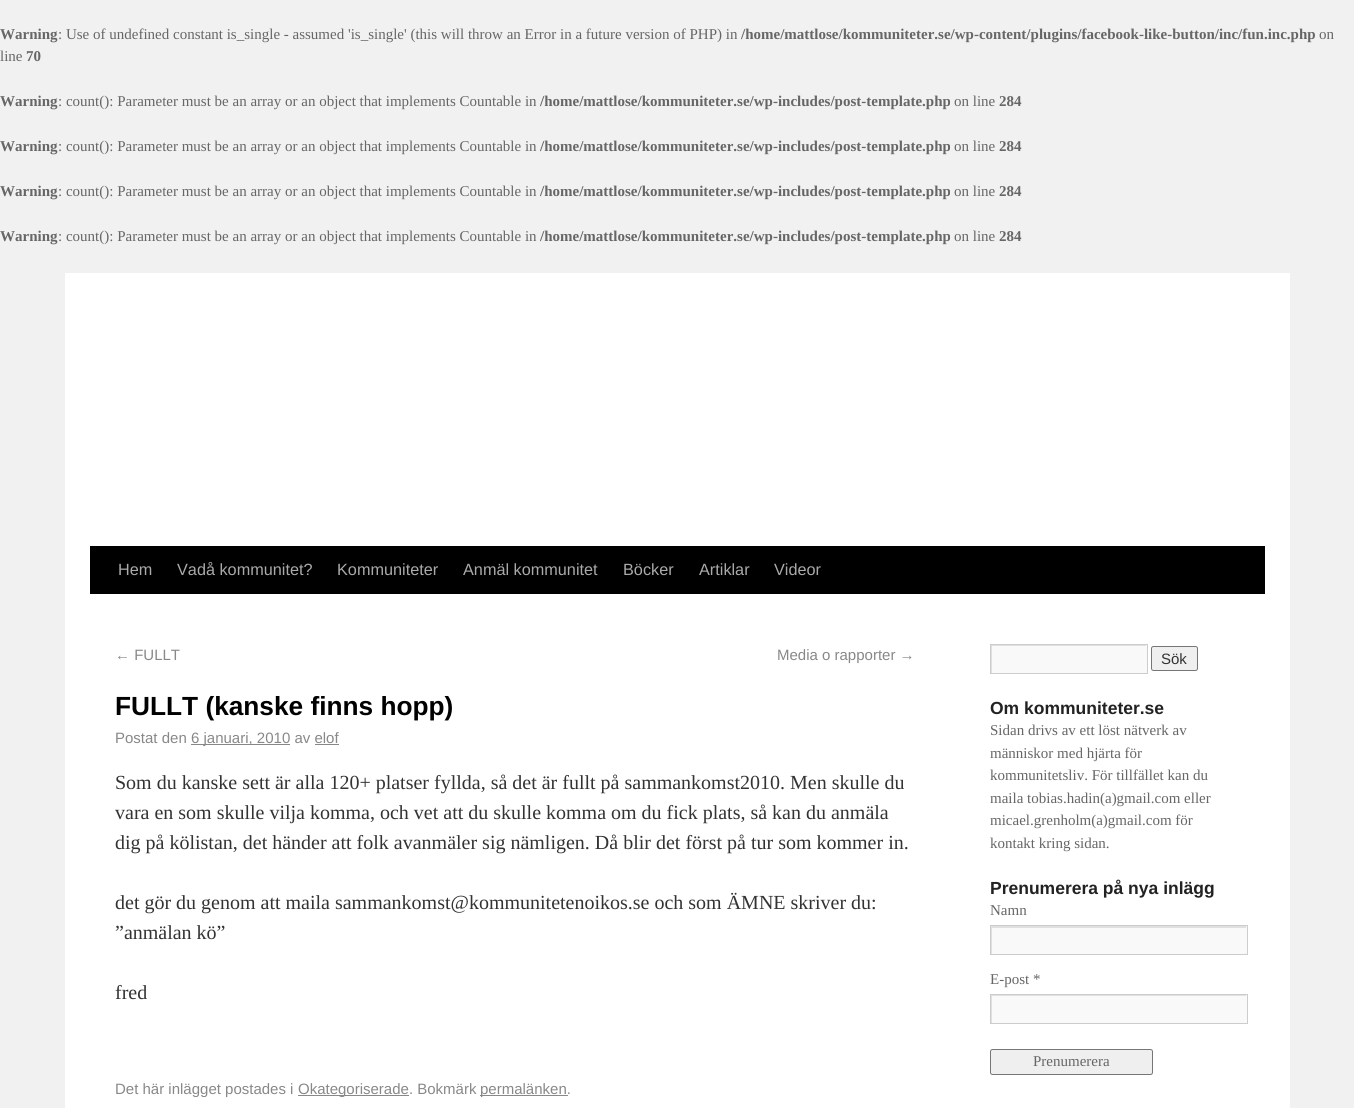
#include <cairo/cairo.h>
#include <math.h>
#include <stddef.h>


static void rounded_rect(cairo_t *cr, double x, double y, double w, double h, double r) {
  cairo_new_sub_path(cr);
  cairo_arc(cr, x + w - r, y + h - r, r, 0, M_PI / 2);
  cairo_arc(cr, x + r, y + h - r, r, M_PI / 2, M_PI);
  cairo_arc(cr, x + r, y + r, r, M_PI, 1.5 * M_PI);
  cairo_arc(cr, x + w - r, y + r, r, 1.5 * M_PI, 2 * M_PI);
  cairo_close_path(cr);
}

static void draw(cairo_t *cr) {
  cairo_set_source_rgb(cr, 241 / 255.0, 241 / 255.0, 241 / 255.0);
  cairo_paint(cr);
  cairo_set_source_rgb(cr, 1, 1, 1);
  cairo_rectangle(cr, 65, 273, 1225, 835);
  cairo_fill(cr);
  cairo_set_source_rgb(cr, 0, 0, 0);
  cairo_rectangle(cr, 90, 546, 1175, 48);
  cairo_fill(cr);
  cairo_set_source_rgb(cr, 136 / 255.0, 136 / 255.0, 136 / 255.0);
  cairo_rectangle(cr, 191, 744, 99, 1);
  cairo_fill(cr);
  cairo_rectangle(cr, 315, 744, 24, 1);
  cairo_fill(cr);
  cairo_rectangle(cr, 298, 1095, 111, 1);
  cairo_fill(cr);
  cairo_rectangle(cr, 480, 1095, 88, 1);
  cairo_fill(cr);
  cairo_set_source_rgb(cr, 249 / 255.0, 249 / 255.0, 249 / 255.0);
  cairo_rectangle(cr, 992, 645, 155, 28);
  cairo_fill(cr);
  cairo_save(cr);
  cairo_rectangle(cr, 991, 645, 155, 28);
  cairo_clip(cr);
  cairo_set_source_rgb(cr, 224 / 255.0, 224 / 255.0, 224 / 255.0);
  cairo_set_fill_rule(cr, CAIRO_FILL_RULE_EVEN_ODD);
  cairo_new_path(cr);
  cairo_move_to(cr, 868, 521);
  cairo_line_to(cr, 1270, 521);
  cairo_line_to(cr, 1270, 796);
  cairo_line_to(cr, 868, 796);
  cairo_close_path(cr);
  cairo_move_to(cr, 992, 646);
  cairo_line_to(cr, 1148, 646);
  cairo_line_to(cr, 1148, 674);
  cairo_line_to(cr, 992, 674);
  cairo_close_path(cr);
  cairo_fill(cr);
  cairo_restore(cr);
  cairo_rectangle(cr, 990.5, 644.5, 157, 29);
  cairo_set_source_rgb(cr, 204 / 255.0, 204 / 255.0, 204 / 255.0);
  cairo_set_line_width(cr, 1);
  cairo_stroke(cr);
  cairo_set_source_rgb(cr, 239 / 255.0, 239 / 255.0, 239 / 255.0);
  rounded_rect(cr, 1151.5, 646.5, 46, 24, 2);
  cairo_fill_preserve(cr);
  cairo_set_source_rgb(cr, 118 / 255.0, 118 / 255.0, 118 / 255.0);
  cairo_stroke(cr);
  cairo_set_source_rgb(cr, 249 / 255.0, 249 / 255.0, 249 / 255.0);
  cairo_rectangle(cr, 992, 926, 255, 28);
  cairo_fill(cr);
  cairo_save(cr);
  cairo_rectangle(cr, 991, 926, 255, 28);
  cairo_clip(cr);
  cairo_set_source_rgb(cr, 224 / 255.0, 224 / 255.0, 224 / 255.0);
  cairo_set_fill_rule(cr, CAIRO_FILL_RULE_EVEN_ODD);
  cairo_new_path(cr);
  cairo_move_to(cr, 868, 802);
  cairo_line_to(cr, 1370, 802);
  cairo_line_to(cr, 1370, 1078);
  cairo_line_to(cr, 868, 1078);
  cairo_close_path(cr);
  cairo_move_to(cr, 992, 928);
  cairo_line_to(cr, 1248, 928);
  cairo_line_to(cr, 1248, 955);
  cairo_line_to(cr, 992, 955);
  cairo_close_path(cr);
  cairo_fill(cr);
  cairo_restore(cr);
  cairo_rectangle(cr, 990.5, 925.5, 257, 29);
  cairo_set_source_rgb(cr, 204 / 255.0, 204 / 255.0, 204 / 255.0);
  cairo_stroke(cr);
  cairo_set_source_rgb(cr, 249 / 255.0, 249 / 255.0, 249 / 255.0);
  cairo_rectangle(cr, 992, 995, 255, 28);
  cairo_fill(cr);
  cairo_save(cr);
  cairo_rectangle(cr, 991, 995, 255, 28);
  cairo_clip(cr);
  cairo_set_source_rgb(cr, 224 / 255.0, 224 / 255.0, 224 / 255.0);
  cairo_set_fill_rule(cr, CAIRO_FILL_RULE_EVEN_ODD);
  cairo_new_path(cr);
  cairo_move_to(cr, 868, 871);
  cairo_line_to(cr, 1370, 871);
  cairo_line_to(cr, 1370, 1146);
  cairo_line_to(cr, 868, 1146);
  cairo_close_path(cr);
  cairo_move_to(cr, 992, 996);
  cairo_line_to(cr, 1248, 996);
  cairo_line_to(cr, 1248, 1024);
  cairo_line_to(cr, 992, 1024);
  cairo_close_path(cr);
  cairo_fill(cr);
  cairo_restore(cr);
  cairo_rectangle(cr, 990.5, 994.5, 257, 29);
  cairo_set_source_rgb(cr, 204 / 255.0, 204 / 255.0, 204 / 255.0);
  cairo_stroke(cr);
  cairo_set_source_rgb(cr, 239 / 255.0, 239 / 255.0, 239 / 255.0);
  rounded_rect(cr, 990.5, 1049.5, 162, 25, 2);
  cairo_fill_preserve(cr);
  cairo_set_source_rgb(cr, 118 / 255.0, 118 / 255.0, 118 / 255.0);
  cairo_stroke(cr);
  cairo_select_font_face(cr, "Liberation Serif", CAIRO_FONT_SLANT_NORMAL, CAIRO_FONT_WEIGHT_BOLD);
  cairo_set_font_size(cr, 15);
  cairo_set_source_rgb(cr, 102 / 255.0, 102 / 255.0, 102 / 255.0);
  cairo_move_to(cr, 0, 39);
  cairo_show_text(cr, "Warning");
  cairo_select_font_face(cr, "Liberation Serif", CAIRO_FONT_SLANT_NORMAL, CAIRO_FONT_WEIGHT_NORMAL);
  cairo_move_to(cr, 58, 39);
  cairo_show_text(cr, ": Use of undefined constant is_single - assumed 'is_single' (this will throw an Error in a future version of PHP) in");
  cairo_select_font_face(cr, "Liberation Serif", CAIRO_FONT_SLANT_NORMAL, CAIRO_FONT_WEIGHT_BOLD);
  cairo_move_to(cr, 741, 39);
  cairo_show_text(cr, "/home/mattlose/kommuniteter.se/wp-content/plugins/facebook-like-button/inc/fun.inc.php");
  cairo_select_font_face(cr, "Liberation Serif", CAIRO_FONT_SLANT_NORMAL, CAIRO_FONT_WEIGHT_NORMAL);
  cairo_move_to(cr, 1319, 39);
  cairo_show_text(cr, "on");
  cairo_move_to(cr, 0, 61);
  cairo_show_text(cr, "line");
  cairo_select_font_face(cr, "Liberation Serif", CAIRO_FONT_SLANT_NORMAL, CAIRO_FONT_WEIGHT_BOLD);
  cairo_move_to(cr, 26, 61);
  cairo_show_text(cr, "70");
  cairo_move_to(cr, 0, 106);
  cairo_show_text(cr, "Warning");
  cairo_select_font_face(cr, "Liberation Serif", CAIRO_FONT_SLANT_NORMAL, CAIRO_FONT_WEIGHT_NORMAL);
  cairo_move_to(cr, 58, 106);
  cairo_show_text(cr, ": count(): Parameter must be an array or an object that implements Countable in");
  cairo_select_font_face(cr, "Liberation Serif", CAIRO_FONT_SLANT_NORMAL, CAIRO_FONT_WEIGHT_BOLD);
  cairo_move_to(cr, 540, 106);
  cairo_show_text(cr, "/home/mattlose/kommuniteter.se/wp-includes/post-template.php");
  cairo_select_font_face(cr, "Liberation Serif", CAIRO_FONT_SLANT_NORMAL, CAIRO_FONT_WEIGHT_NORMAL);
  cairo_move_to(cr, 954, 106);
  cairo_show_text(cr, "on line");
  cairo_select_font_face(cr, "Liberation Serif", CAIRO_FONT_SLANT_NORMAL, CAIRO_FONT_WEIGHT_BOLD);
  cairo_move_to(cr, 999, 106);
  cairo_show_text(cr, "284");
  cairo_move_to(cr, 0, 151);
  cairo_show_text(cr, "Warning");
  cairo_select_font_face(cr, "Liberation Serif", CAIRO_FONT_SLANT_NORMAL, CAIRO_FONT_WEIGHT_NORMAL);
  cairo_move_to(cr, 58, 151);
  cairo_show_text(cr, ": count(): Parameter must be an array or an object that implements Countable in");
  cairo_select_font_face(cr, "Liberation Serif", CAIRO_FONT_SLANT_NORMAL, CAIRO_FONT_WEIGHT_BOLD);
  cairo_move_to(cr, 540, 151);
  cairo_show_text(cr, "/home/mattlose/kommuniteter.se/wp-includes/post-template.php");
  cairo_select_font_face(cr, "Liberation Serif", CAIRO_FONT_SLANT_NORMAL, CAIRO_FONT_WEIGHT_NORMAL);
  cairo_move_to(cr, 954, 151);
  cairo_show_text(cr, "on line");
  cairo_select_font_face(cr, "Liberation Serif", CAIRO_FONT_SLANT_NORMAL, CAIRO_FONT_WEIGHT_BOLD);
  cairo_move_to(cr, 999, 151);
  cairo_show_text(cr, "284");
  cairo_move_to(cr, 0, 196);
  cairo_show_text(cr, "Warning");
  cairo_select_font_face(cr, "Liberation Serif", CAIRO_FONT_SLANT_NORMAL, CAIRO_FONT_WEIGHT_NORMAL);
  cairo_move_to(cr, 58, 196);
  cairo_show_text(cr, ": count(): Parameter must be an array or an object that implements Countable in");
  cairo_select_font_face(cr, "Liberation Serif", CAIRO_FONT_SLANT_NORMAL, CAIRO_FONT_WEIGHT_BOLD);
  cairo_move_to(cr, 540, 196);
  cairo_show_text(cr, "/home/mattlose/kommuniteter.se/wp-includes/post-template.php");
  cairo_select_font_face(cr, "Liberation Serif", CAIRO_FONT_SLANT_NORMAL, CAIRO_FONT_WEIGHT_NORMAL);
  cairo_move_to(cr, 954, 196);
  cairo_show_text(cr, "on line");
  cairo_select_font_face(cr, "Liberation Serif", CAIRO_FONT_SLANT_NORMAL, CAIRO_FONT_WEIGHT_BOLD);
  cairo_move_to(cr, 999, 196);
  cairo_show_text(cr, "284");
  cairo_move_to(cr, 0, 241);
  cairo_show_text(cr, "Warning");
  cairo_select_font_face(cr, "Liberation Serif", CAIRO_FONT_SLANT_NORMAL, CAIRO_FONT_WEIGHT_NORMAL);
  cairo_move_to(cr, 58, 241);
  cairo_show_text(cr, ": count(): Parameter must be an array or an object that implements Countable in");
  cairo_select_font_face(cr, "Liberation Serif", CAIRO_FONT_SLANT_NORMAL, CAIRO_FONT_WEIGHT_BOLD);
  cairo_move_to(cr, 540, 241);
  cairo_show_text(cr, "/home/mattlose/kommuniteter.se/wp-includes/post-template.php");
  cairo_select_font_face(cr, "Liberation Serif", CAIRO_FONT_SLANT_NORMAL, CAIRO_FONT_WEIGHT_NORMAL);
  cairo_move_to(cr, 954, 241);
  cairo_show_text(cr, "on line");
  cairo_select_font_face(cr, "Liberation Serif", CAIRO_FONT_SLANT_NORMAL, CAIRO_FONT_WEIGHT_BOLD);
  cairo_move_to(cr, 999, 241);
  cairo_show_text(cr, "284");
  cairo_select_font_face(cr, "Liberation Sans", CAIRO_FONT_SLANT_NORMAL, CAIRO_FONT_WEIGHT_NORMAL);
  cairo_set_font_size(cr, 16.25);
  cairo_set_source_rgb(cr, 170 / 255.0, 170 / 255.0, 170 / 255.0);
  cairo_move_to(cr, 118, 575);
  cairo_show_text(cr, "Hem");
  cairo_move_to(cr, 177, 575);
  cairo_show_text(cr, "Vadå kommunitet?");
  cairo_move_to(cr, 337, 575);
  cairo_show_text(cr, "Kommuniteter");
  cairo_move_to(cr, 463, 575);
  cairo_show_text(cr, "Anmäl kommunitet");
  cairo_move_to(cr, 623, 575);
  cairo_show_text(cr, "Böcker");
  cairo_move_to(cr, 699, 575);
  cairo_show_text(cr, "Artiklar");
  cairo_move_to(cr, 774, 575);
  cairo_show_text(cr, "Videor");
  cairo_set_font_size(cr, 15);
  cairo_set_source_rgb(cr, 136 / 255.0, 136 / 255.0, 136 / 255.0);
  cairo_move_to(cr, 115, 660);
  cairo_show_text(cr, "← FULLT");
  cairo_move_to(cr, 777, 660);
  cairo_show_text(cr, "Media o rapporter →");
  cairo_select_font_face(cr, "Liberation Sans", CAIRO_FONT_SLANT_NORMAL, CAIRO_FONT_WEIGHT_BOLD);
  cairo_set_font_size(cr, 26.25);
  cairo_set_source_rgb(cr, 0, 0, 0);
  cairo_move_to(cr, 115, 715);
  cairo_show_text(cr, "FULLT (kanske finns hopp)");
  cairo_select_font_face(cr, "Liberation Sans", CAIRO_FONT_SLANT_NORMAL, CAIRO_FONT_WEIGHT_NORMAL);
  cairo_set_font_size(cr, 15);
  cairo_set_source_rgb(cr, 136 / 255.0, 136 / 255.0, 136 / 255.0);
  cairo_move_to(cr, 115, 743);
  cairo_show_text(cr, "Postat den");
  cairo_move_to(cr, 191, 743);
  cairo_show_text(cr, "6 januari, 2010 av elof");
  cairo_select_font_face(cr, "Liberation Serif", CAIRO_FONT_SLANT_NORMAL, CAIRO_FONT_WEIGHT_NORMAL);
  cairo_set_font_size(cr, 20);
  cairo_set_source_rgb(cr, 51 / 255.0, 51 / 255.0, 51 / 255.0);
  cairo_move_to(cr, 115, 789);
  cairo_show_text(cr, "Som du kanske sett är alla 120+ platser fyllda, så det är fullt på sammankomst2010. Men skulle du");
  cairo_move_to(cr, 115, 819);
  cairo_show_text(cr, "vara en som skulle vilja komma, och vet att du skulle komma om du fick plats, så kan du anmäla");
  cairo_move_to(cr, 115, 849);
  cairo_show_text(cr, "dig på kölistan, det händer att folk avanmäler sig nämligen. Då blir det först på tur som kommer in.");
  cairo_move_to(cr, 115, 909);
  cairo_show_text(cr, "det gör du genom att maila sammankomst@kommunitetenoikos.se och som ÄMNE skriver du:");
  cairo_move_to(cr, 115, 939);
  cairo_show_text(cr, "”anmälan kö”");
  cairo_move_to(cr, 115, 999);
  cairo_show_text(cr, "fred");
  cairo_select_font_face(cr, "Liberation Sans", CAIRO_FONT_SLANT_NORMAL, CAIRO_FONT_WEIGHT_NORMAL);
  cairo_set_font_size(cr, 15);
  cairo_set_source_rgb(cr, 136 / 255.0, 136 / 255.0, 136 / 255.0);
  cairo_move_to(cr, 115, 1094);
  cairo_show_text(cr, "Det här inlägget postades i");
  cairo_move_to(cr, 298, 1094);
  cairo_show_text(cr, "Okategoriserade. Bokmärk");
  cairo_move_to(cr, 480, 1094);
  cairo_show_text(cr, "permalänken.");
  cairo_set_source_rgb(cr, 51 / 255.0, 51 / 255.0, 51 / 255.0);
  cairo_move_to(cr, 1161, 664);
  cairo_show_text(cr, "Sök");
  cairo_select_font_face(cr, "Liberation Sans", CAIRO_FONT_SLANT_NORMAL, CAIRO_FONT_WEIGHT_BOLD);
  cairo_set_font_size(cr, 17.5);
  cairo_set_source_rgb(cr, 34 / 255.0, 34 / 255.0, 34 / 255.0);
  cairo_move_to(cr, 990, 714);
  cairo_show_text(cr, "Om kommuniteter.se");
  cairo_select_font_face(cr, "Liberation Serif", CAIRO_FONT_SLANT_NORMAL, CAIRO_FONT_WEIGHT_NORMAL);
  cairo_set_font_size(cr, 15);
  cairo_set_source_rgb(cr, 102 / 255.0, 102 / 255.0, 102 / 255.0);
  cairo_move_to(cr, 990, 735);
  cairo_show_text(cr, "Sidan drivs av ett löst nätverk av");
  cairo_move_to(cr, 990, 758);
  cairo_show_text(cr, "människor med hjärta för");
  cairo_move_to(cr, 990, 780);
  cairo_show_text(cr, "kommunitetsliv. För tillfället kan du");
  cairo_move_to(cr, 990, 803);
  cairo_show_text(cr, "maila tobias.hadin(a)gmail.com eller");
  cairo_move_to(cr, 990, 825);
  cairo_show_text(cr, "micael.grenholm(a)gmail.com för");
  cairo_move_to(cr, 990, 848);
  cairo_show_text(cr, "kontakt kring sidan.");
  cairo_select_font_face(cr, "Liberation Sans", CAIRO_FONT_SLANT_NORMAL, CAIRO_FONT_WEIGHT_BOLD);
  cairo_set_font_size(cr, 17.5);
  cairo_set_source_rgb(cr, 34 / 255.0, 34 / 255.0, 34 / 255.0);
  cairo_move_to(cr, 990, 894);
  cairo_show_text(cr, "Prenumerera på nya inlägg");
  cairo_select_font_face(cr, "Liberation Serif", CAIRO_FONT_SLANT_NORMAL, CAIRO_FONT_WEIGHT_NORMAL);
  cairo_set_font_size(cr, 15);
  cairo_set_source_rgb(cr, 102 / 255.0, 102 / 255.0, 102 / 255.0);
  cairo_move_to(cr, 990, 915);
  cairo_show_text(cr, "Namn");
  cairo_move_to(cr, 990, 984);
  cairo_show_text(cr, "E-post *");
  cairo_move_to(cr, 1033, 1066);
  cairo_show_text(cr, "Prenumerera");
}

int main(void) {
  cairo_surface_t *surface = cairo_image_surface_create(CAIRO_FORMAT_RGB24, 1354, 1108);
  cairo_t *cr = cairo_create(surface);
  cairo_font_options_t *options = cairo_font_options_create();
  cairo_font_options_set_hint_metrics(options, CAIRO_HINT_METRICS_OFF);
  cairo_font_options_set_hint_style(options, CAIRO_HINT_STYLE_NONE);
  cairo_set_font_options(cr, options);
  cairo_set_miter_limit(cr, 4);
  draw(cr);
  cairo_surface_write_to_png(surface, "out.png");
  cairo_font_options_destroy(options);
  cairo_destroy(cr);
  cairo_surface_destroy(surface);
  return 0;
}
